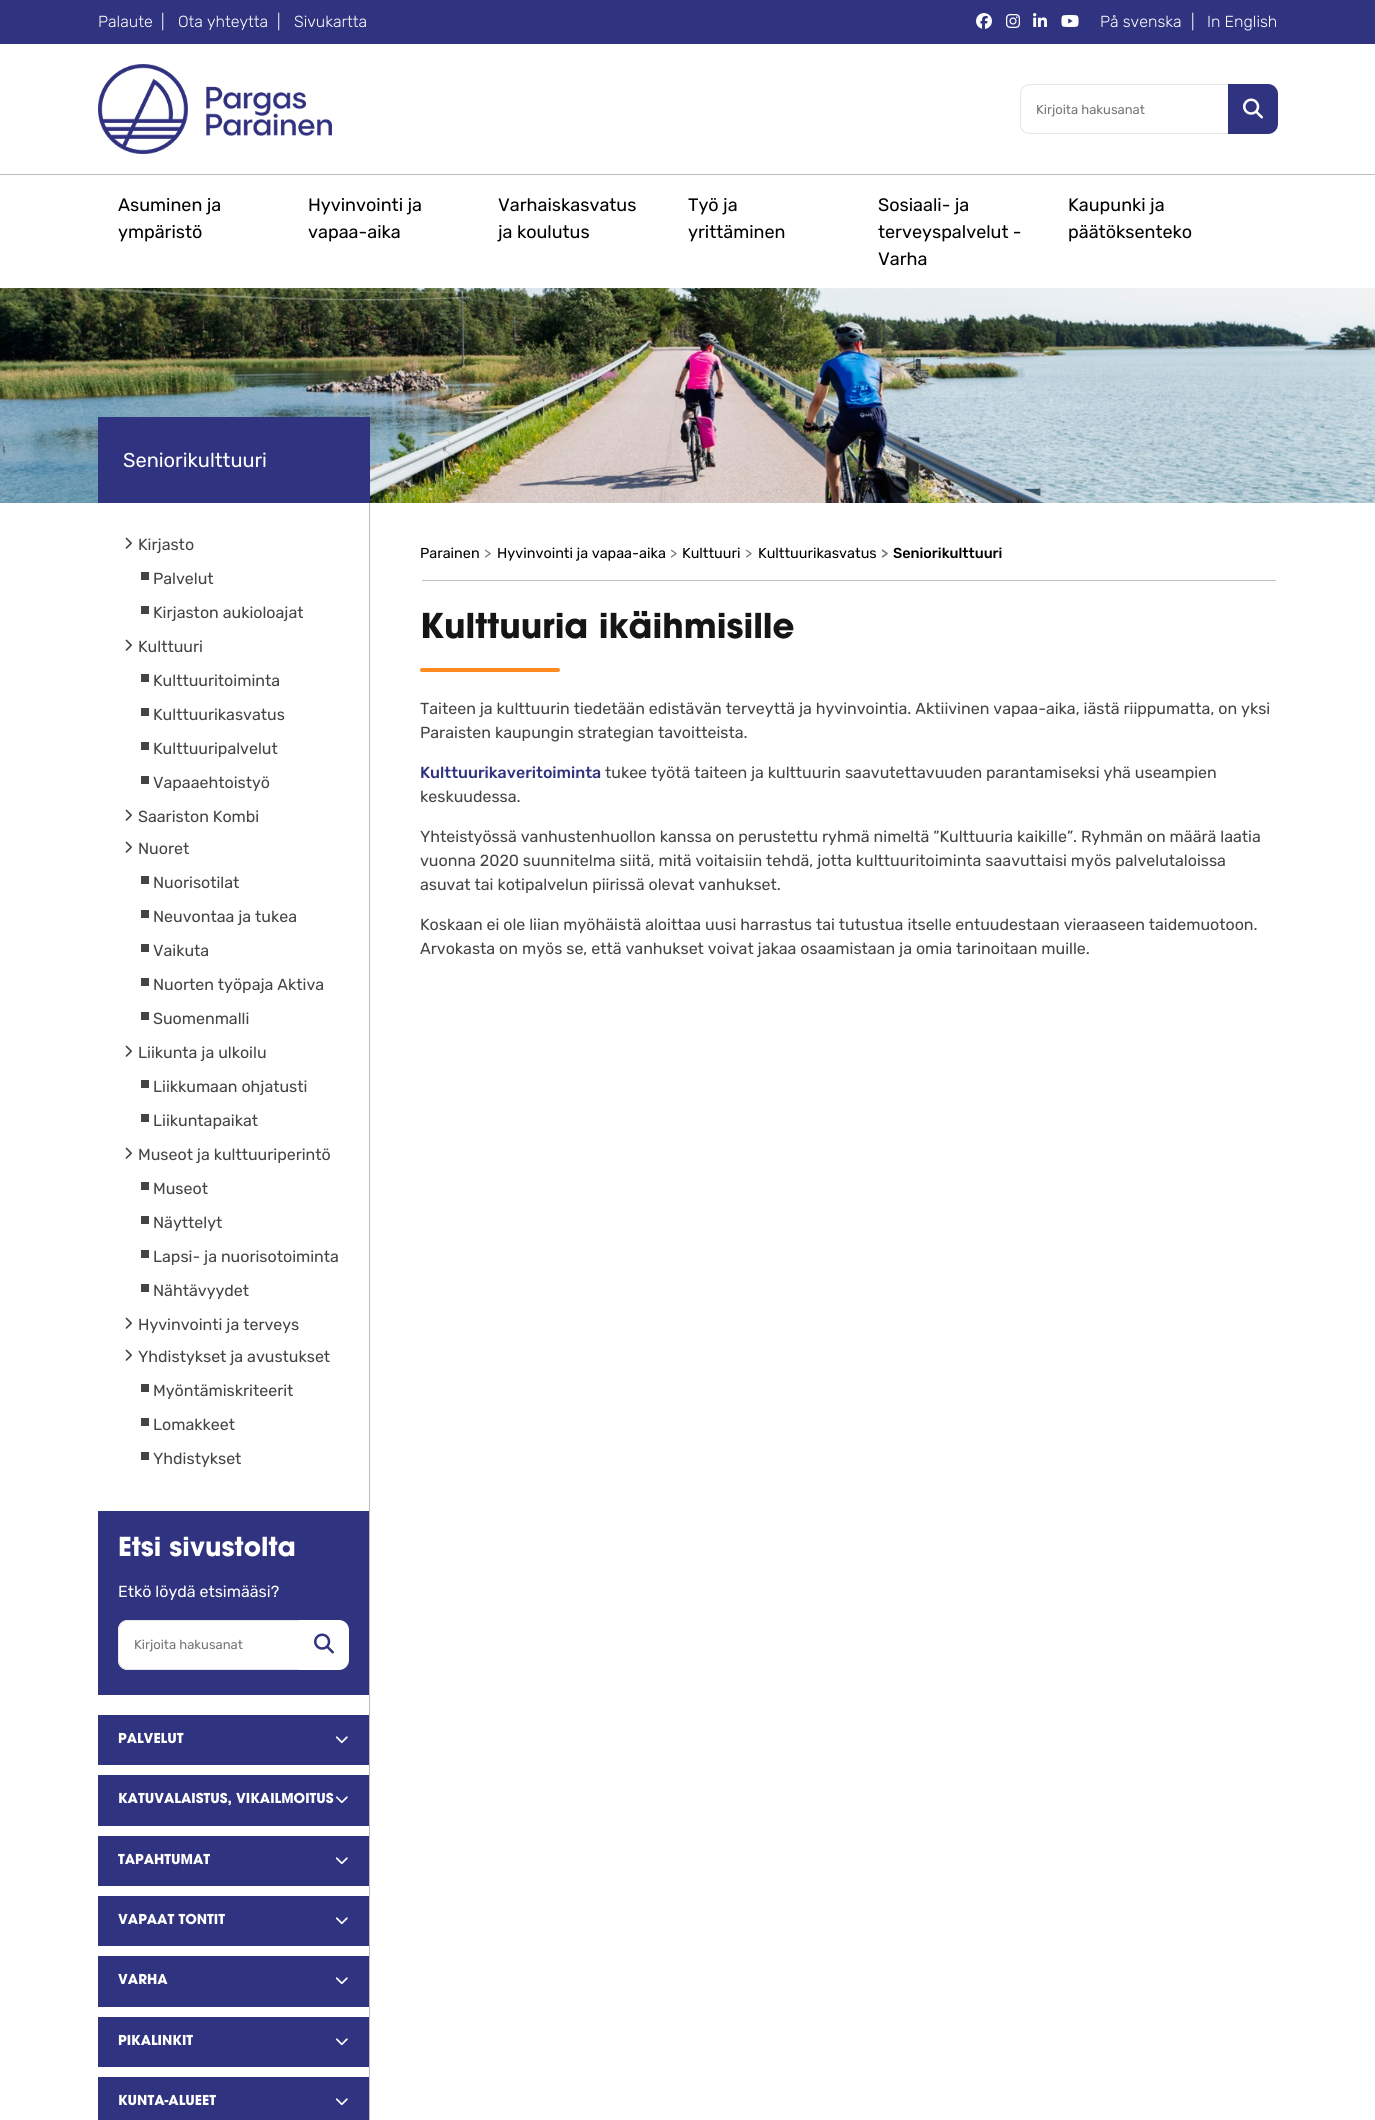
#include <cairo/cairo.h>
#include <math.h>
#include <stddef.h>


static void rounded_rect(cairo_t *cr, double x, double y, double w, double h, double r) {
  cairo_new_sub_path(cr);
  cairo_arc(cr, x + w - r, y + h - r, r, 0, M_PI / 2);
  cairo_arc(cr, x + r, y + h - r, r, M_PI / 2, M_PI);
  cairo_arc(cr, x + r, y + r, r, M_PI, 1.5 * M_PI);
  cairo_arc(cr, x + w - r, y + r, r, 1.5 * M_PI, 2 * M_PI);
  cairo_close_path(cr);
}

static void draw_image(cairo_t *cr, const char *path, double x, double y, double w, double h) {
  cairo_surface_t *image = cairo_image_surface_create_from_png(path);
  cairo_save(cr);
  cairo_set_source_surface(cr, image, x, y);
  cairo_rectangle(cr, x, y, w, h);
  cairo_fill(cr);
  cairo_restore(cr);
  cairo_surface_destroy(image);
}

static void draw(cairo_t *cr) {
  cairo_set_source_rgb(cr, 1, 1, 1);
  cairo_paint(cr);
  cairo_set_source_rgb(cr, 48 / 255.0, 51 / 255.0, 127 / 255.0);
  cairo_rectangle(cr, 0, 0, 1375, 44);
  cairo_fill(cr);
  draw_image(cr, "images/1.png", 976, 13, 16, 16);
  draw_image(cr, "images/2.png", 1006, 14, 14, 14);
  draw_image(cr, "images/3.png", 1033, 13, 14, 14);
  draw_image(cr, "images/4.png", 1061, 15, 18, 12);
  draw_image(cr, "images/5.png", 98, 64, 234, 90);
  cairo_set_source_rgb(cr, 230 / 255.0, 230 / 255.0, 230 / 255.0);
  cairo_set_fill_rule(cr, CAIRO_FILL_RULE_EVEN_ODD);
  cairo_new_path(cr);
  cairo_move_to(cr, 1030, 84);
  cairo_line_to(cr, 1228, 84);
  cairo_line_to(cr, 1228, 134);
  cairo_line_to(cr, 1030, 134);
  cairo_curve_to(cr, 1024, 134, 1020, 130, 1020, 124);
  cairo_line_to(cr, 1020, 94);
  cairo_curve_to(cr, 1020, 88, 1024, 84, 1030, 84);
  cairo_close_path(cr);
  cairo_move_to(cr, 1030, 85);
  cairo_line_to(cr, 1228, 85);
  cairo_line_to(cr, 1228, 133);
  cairo_line_to(cr, 1030, 133);
  cairo_curve_to(cr, 1025, 133, 1021, 129, 1021, 124);
  cairo_line_to(cr, 1021, 94);
  cairo_curve_to(cr, 1021, 89, 1025, 85, 1030, 85);
  cairo_close_path(cr);
  cairo_fill(cr);
  cairo_set_source_rgb(cr, 48 / 255.0, 51 / 255.0, 127 / 255.0);
  cairo_new_path(cr);
  cairo_move_to(cr, 1228, 84);
  cairo_line_to(cr, 1268, 84);
  cairo_curve_to(cr, 1273.5, 84, 1278, 88.5, 1278, 94);
  cairo_line_to(cr, 1278, 124);
  cairo_curve_to(cr, 1278, 129.5, 1273.5, 134, 1268, 134);
  cairo_line_to(cr, 1228, 134);
  cairo_close_path(cr);
  cairo_fill(cr);
  draw_image(cr, "images/6.png", 1243, 98, 20, 21);
  cairo_set_source_rgb(cr, 190 / 255.0, 190 / 255.0, 190 / 255.0);
  cairo_rectangle(cr, 0, 174, 1375, 1);
  cairo_fill(cr);
  draw_image(cr, "images/7.png", 0, 288, 1375, 215);
  cairo_rectangle(cr, 369, 503, 1, 1617);
  cairo_fill(cr);
  cairo_set_source_rgb(cr, 48 / 255.0, 51 / 255.0, 127 / 255.0);
  cairo_rectangle(cr, 98, 417, 272, 86);
  cairo_fill(cr);
  draw_image(cr, "images/8.png", 125, 537, 7, 12);
  cairo_set_source_rgb(cr, 68 / 255.0, 68 / 255.0, 68 / 255.0);
  cairo_rectangle(cr, 141, 572, 8, 8);
  cairo_fill(cr);
  cairo_rectangle(cr, 141, 606, 8, 8);
  cairo_fill(cr);
  draw_image(cr, "images/8.png", 125, 639, 7, 12);
  cairo_rectangle(cr, 141, 674, 8, 8);
  cairo_fill(cr);
  cairo_rectangle(cr, 141, 708, 8, 8);
  cairo_fill(cr);
  cairo_rectangle(cr, 141, 742, 8, 8);
  cairo_fill(cr);
  cairo_rectangle(cr, 141, 776, 8, 8);
  cairo_fill(cr);
  draw_image(cr, "images/8.png", 125, 809, 7, 12);
  draw_image(cr, "images/8.png", 125, 841, 7, 12);
  cairo_rectangle(cr, 141, 876, 8, 8);
  cairo_fill(cr);
  cairo_rectangle(cr, 141, 910, 8, 8);
  cairo_fill(cr);
  cairo_rectangle(cr, 141, 944, 8, 8);
  cairo_fill(cr);
  cairo_rectangle(cr, 141, 978, 8, 8);
  cairo_fill(cr);
  cairo_rectangle(cr, 141, 1012, 8, 8);
  cairo_fill(cr);
  draw_image(cr, "images/8.png", 125, 1045, 7, 12);
  cairo_rectangle(cr, 141, 1080, 8, 8);
  cairo_fill(cr);
  cairo_rectangle(cr, 141, 1114, 8, 8);
  cairo_fill(cr);
  draw_image(cr, "images/8.png", 125, 1147, 7, 12);
  cairo_rectangle(cr, 141, 1182, 8, 8);
  cairo_fill(cr);
  cairo_rectangle(cr, 141, 1216, 8, 8);
  cairo_fill(cr);
  cairo_rectangle(cr, 141, 1250, 8, 8);
  cairo_fill(cr);
  cairo_rectangle(cr, 141, 1284, 8, 8);
  cairo_fill(cr);
  draw_image(cr, "images/8.png", 125, 1317, 7, 12);
  draw_image(cr, "images/8.png", 125, 1349, 7, 12);
  cairo_rectangle(cr, 141, 1384, 8, 8);
  cairo_fill(cr);
  cairo_rectangle(cr, 141, 1418, 8, 8);
  cairo_fill(cr);
  cairo_rectangle(cr, 141, 1452, 8, 8);
  cairo_fill(cr);
  cairo_set_source_rgb(cr, 48 / 255.0, 51 / 255.0, 127 / 255.0);
  cairo_rectangle(cr, 98, 1511, 271, 184);
  cairo_fill(cr);
  cairo_set_source_rgb(cr, 1, 1, 1);
  cairo_new_path(cr);
  cairo_move_to(cr, 128, 1620);
  cairo_line_to(cr, 299, 1620);
  cairo_line_to(cr, 299, 1670);
  cairo_line_to(cr, 128, 1670);
  cairo_curve_to(cr, 122.5, 1670, 118, 1665.5, 118, 1660);
  cairo_line_to(cr, 118, 1630);
  cairo_curve_to(cr, 118, 1624.5, 122.5, 1620, 128, 1620);
  cairo_close_path(cr);
  cairo_fill(cr);
  cairo_set_source_rgb(cr, 230 / 255.0, 230 / 255.0, 230 / 255.0);
  cairo_new_path(cr);
  cairo_move_to(cr, 128, 1620);
  cairo_line_to(cr, 299, 1620);
  cairo_line_to(cr, 299, 1670);
  cairo_line_to(cr, 128, 1670);
  cairo_curve_to(cr, 122, 1670, 118, 1666, 118, 1660);
  cairo_line_to(cr, 118, 1630);
  cairo_curve_to(cr, 118, 1624, 122, 1620, 128, 1620);
  cairo_close_path(cr);
  cairo_move_to(cr, 128, 1621);
  cairo_line_to(cr, 299, 1621);
  cairo_line_to(cr, 299, 1669);
  cairo_line_to(cr, 128, 1669);
  cairo_curve_to(cr, 123, 1669, 119, 1665, 119, 1660);
  cairo_line_to(cr, 119, 1630);
  cairo_curve_to(cr, 119, 1625, 123, 1621, 128, 1621);
  cairo_close_path(cr);
  cairo_fill(cr);
  cairo_set_source_rgb(cr, 1, 1, 1);
  cairo_new_path(cr);
  cairo_move_to(cr, 299, 1620);
  cairo_line_to(cr, 339, 1620);
  cairo_curve_to(cr, 344.5, 1620, 349, 1624.5, 349, 1630);
  cairo_line_to(cr, 349, 1660);
  cairo_curve_to(cr, 349, 1665.5, 344.5, 1670, 339, 1670);
  cairo_line_to(cr, 299, 1670);
  cairo_close_path(cr);
  cairo_fill(cr);
  draw_image(cr, "images/9.png", 314, 1633, 20, 21);
  cairo_set_source_rgb(cr, 48 / 255.0, 51 / 255.0, 127 / 255.0);
  cairo_rectangle(cr, 98, 1715, 271, 50);
  cairo_fill(cr);
  draw_image(cr, "images/10.png", 335, 1736, 13, 8);
  cairo_rectangle(cr, 98, 1775, 271, 51);
  cairo_fill(cr);
  draw_image(cr, "images/10.png", 335, 1796, 13, 8);
  cairo_rectangle(cr, 98, 1836, 271, 50);
  cairo_fill(cr);
  draw_image(cr, "images/10.png", 335, 1857, 13, 8);
  cairo_rectangle(cr, 98, 1896, 271, 50);
  cairo_fill(cr);
  draw_image(cr, "images/10.png", 335, 1917, 13, 8);
  cairo_rectangle(cr, 98, 1956, 271, 51);
  cairo_fill(cr);
  draw_image(cr, "images/10.png", 335, 1977, 13, 8);
  cairo_rectangle(cr, 98, 2017, 271, 50);
  cairo_fill(cr);
  draw_image(cr, "images/10.png", 335, 2038, 13, 8);
  cairo_rectangle(cr, 98, 2077, 271, 43);
  cairo_fill(cr);
  draw_image(cr, "images/10.png", 335, 2098, 13, 8);
  cairo_set_source_rgb(cr, 191 / 255.0, 191 / 255.0, 191 / 255.0);
  cairo_rectangle(cr, 422, 580, 854, 1);
  cairo_fill(cr);
  cairo_set_source_rgb(cr, 1, 138 / 255.0, 34 / 255.0);
  rounded_rect(cr, 420, 668, 140, 4, 2);
  cairo_fill(cr);
  cairo_select_font_face(cr, "Rubik Light", CAIRO_FONT_SLANT_NORMAL, CAIRO_FONT_WEIGHT_NORMAL);
  cairo_set_font_size(cr, 16);
  cairo_set_source_rgb(cr, 1, 1, 1);
  cairo_move_to(cr, 98, 27);
  cairo_show_text(cr, "Palaute");
  cairo_move_to(cr, 161, 27);
  cairo_show_text(cr, "|");
  cairo_move_to(cr, 178, 27);
  cairo_show_text(cr, "Ota yhteytta");
  cairo_move_to(cr, 277, 27);
  cairo_show_text(cr, "|");
  cairo_move_to(cr, 294, 27);
  cairo_show_text(cr, "Sivukartta");
  cairo_move_to(cr, 1100, 27);
  cairo_show_text(cr, "På svenska");
  cairo_move_to(cr, 1191, 27);
  cairo_show_text(cr, "|");
  cairo_move_to(cr, 1207, 27);
  cairo_show_text(cr, "In English");
  cairo_select_font_face(cr, "Rubik", CAIRO_FONT_SLANT_NORMAL, CAIRO_FONT_WEIGHT_NORMAL);
  cairo_set_font_size(cr, 13);
  cairo_set_source_rgb(cr, 117 / 255.0, 117 / 255.0, 117 / 255.0);
  cairo_move_to(cr, 1036, 114);
  cairo_show_text(cr, "Kirjoita hakusanat");
  cairo_set_font_size(cr, 18);
  cairo_set_source_rgb(cr, 0, 0, 0);
  cairo_move_to(cr, 118, 211);
  cairo_show_text(cr, "Asuminen ja");
  cairo_move_to(cr, 118, 238);
  cairo_show_text(cr, "ympäristö");
  cairo_move_to(cr, 308, 211);
  cairo_show_text(cr, "Hyvinvointi ja");
  cairo_move_to(cr, 308, 238);
  cairo_show_text(cr, "vapaa-aika");
  cairo_move_to(cr, 498, 211);
  cairo_show_text(cr, "Varhaiskasvatus");
  cairo_move_to(cr, 498, 238);
  cairo_show_text(cr, "ja koulutus");
  cairo_move_to(cr, 688, 211);
  cairo_show_text(cr, "Työ ja");
  cairo_move_to(cr, 688, 238);
  cairo_show_text(cr, "yrittäminen");
  cairo_move_to(cr, 878, 211);
  cairo_show_text(cr, "Sosiaali- ja");
  cairo_move_to(cr, 878, 238);
  cairo_show_text(cr, "terveyspalvelut -");
  cairo_move_to(cr, 878, 265);
  cairo_show_text(cr, "Varha");
  cairo_move_to(cr, 1068, 211);
  cairo_show_text(cr, "Kaupunki ja");
  cairo_move_to(cr, 1068, 238);
  cairo_show_text(cr, "päätöksenteko");
  cairo_set_font_size(cr, 20);
  cairo_set_source_rgb(cr, 1, 1, 1);
  cairo_move_to(cr, 123, 467);
  cairo_show_text(cr, "Seniorikulttuuri");
  cairo_set_font_size(cr, 16);
  cairo_set_source_rgb(cr, 68 / 255.0, 68 / 255.0, 68 / 255.0);
  cairo_move_to(cr, 138, 550);
  cairo_show_text(cr, "Kirjasto");
  cairo_move_to(cr, 153, 584);
  cairo_show_text(cr, "Palvelut");
  cairo_move_to(cr, 153, 618);
  cairo_show_text(cr, "Kirjaston aukioloajat");
  cairo_move_to(cr, 138, 652);
  cairo_show_text(cr, "Kulttuuri");
  cairo_move_to(cr, 153, 686);
  cairo_show_text(cr, "Kulttuuritoiminta");
  cairo_move_to(cr, 153, 720);
  cairo_show_text(cr, "Kulttuurikasvatus");
  cairo_move_to(cr, 153, 754);
  cairo_show_text(cr, "Kulttuuripalvelut");
  cairo_move_to(cr, 153, 788);
  cairo_show_text(cr, "Vapaaehtoistyö");
  cairo_move_to(cr, 138, 822);
  cairo_show_text(cr, "Saariston Kombi");
  cairo_move_to(cr, 138, 854);
  cairo_show_text(cr, "Nuoret");
  cairo_move_to(cr, 153, 888);
  cairo_show_text(cr, "Nuorisotilat");
  cairo_move_to(cr, 153, 922);
  cairo_show_text(cr, "Neuvontaa ja tukea");
  cairo_move_to(cr, 153, 956);
  cairo_show_text(cr, "Vaikuta");
  cairo_move_to(cr, 153, 990);
  cairo_show_text(cr, "Nuorten työpaja Aktiva");
  cairo_move_to(cr, 153, 1024);
  cairo_show_text(cr, "Suomenmalli");
  cairo_move_to(cr, 138, 1058);
  cairo_show_text(cr, "Liikunta ja ulkoilu");
  cairo_move_to(cr, 153, 1092);
  cairo_show_text(cr, "Liikkumaan ohjatusti");
  cairo_move_to(cr, 153, 1126);
  cairo_show_text(cr, "Liikuntapaikat");
  cairo_move_to(cr, 138, 1160);
  cairo_show_text(cr, "Museot ja kulttuuriperintö");
  cairo_move_to(cr, 153, 1194);
  cairo_show_text(cr, "Museot");
  cairo_move_to(cr, 153, 1228);
  cairo_show_text(cr, "Näyttelyt");
  cairo_move_to(cr, 153, 1262);
  cairo_show_text(cr, "Lapsi- ja nuorisotoiminta");
  cairo_move_to(cr, 153, 1296);
  cairo_show_text(cr, "Nähtävyydet");
  cairo_move_to(cr, 138, 1330);
  cairo_show_text(cr, "Hyvinvointi ja terveys");
  cairo_move_to(cr, 138, 1362);
  cairo_show_text(cr, "Yhdistykset ja avustukset");
  cairo_move_to(cr, 153, 1396);
  cairo_show_text(cr, "Myöntämiskriteerit");
  cairo_move_to(cr, 153, 1430);
  cairo_show_text(cr, "Lomakkeet");
  cairo_move_to(cr, 153, 1464);
  cairo_show_text(cr, "Yhdistykset");
  cairo_select_font_face(cr, "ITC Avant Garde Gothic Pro", CAIRO_FONT_SLANT_NORMAL, CAIRO_FONT_WEIGHT_BOLD);
  cairo_set_font_size(cr, 26);
  cairo_set_source_rgb(cr, 1, 1, 1);
  cairo_move_to(cr, 118, 1556);
  cairo_show_text(cr, "Etsi sivustolta");
  cairo_select_font_face(cr, "Rubik", CAIRO_FONT_SLANT_NORMAL, CAIRO_FONT_WEIGHT_NORMAL);
  cairo_set_font_size(cr, 16);
  cairo_move_to(cr, 118, 1597);
  cairo_show_text(cr, "Etkö löydä etsimääsi?");
  cairo_set_font_size(cr, 13);
  cairo_set_source_rgb(cr, 117 / 255.0, 117 / 255.0, 117 / 255.0);
  cairo_move_to(cr, 134, 1649);
  cairo_show_text(cr, "Kirjoita hakusanat");
  cairo_select_font_face(cr, "ITC Avant Garde Gothic Pro", CAIRO_FONT_SLANT_NORMAL, CAIRO_FONT_WEIGHT_BOLD);
  cairo_set_font_size(cr, 13.6);
  cairo_set_source_rgb(cr, 1, 1, 1);
  cairo_move_to(cr, 118, 1743);
  cairo_show_text(cr, "PALVELUT");
  cairo_move_to(cr, 118, 1803);
  cairo_show_text(cr, "KATUVALAISTUS, VIKAILMOITUS");
  cairo_move_to(cr, 118, 1864);
  cairo_show_text(cr, "TAPAHTUMAT");
  cairo_move_to(cr, 118, 1924);
  cairo_show_text(cr, "VAPAAT TONTIT");
  cairo_move_to(cr, 118, 1984);
  cairo_show_text(cr, "VARHA");
  cairo_move_to(cr, 118, 2045);
  cairo_show_text(cr, "PIKALINKIT");
  cairo_move_to(cr, 118, 2105);
  cairo_show_text(cr, "KUNTA-ALUEET");
  cairo_select_font_face(cr, "Rubik", CAIRO_FONT_SLANT_NORMAL, CAIRO_FONT_WEIGHT_NORMAL);
  cairo_set_font_size(cr, 14.4);
  cairo_set_source_rgb(cr, 0, 0, 0);
  cairo_move_to(cr, 420, 558);
  cairo_show_text(cr, "Parainen");
  cairo_set_source_rgb(cr, 108 / 255.0, 117 / 255.0, 125 / 255.0);
  cairo_move_to(cr, 484, 558);
  cairo_show_text(cr, ">");
  cairo_set_source_rgb(cr, 0, 0, 0);
  cairo_move_to(cr, 497, 558);
  cairo_show_text(cr, "Hyvinvointi ja vapaa-aika");
  cairo_set_source_rgb(cr, 108 / 255.0, 117 / 255.0, 125 / 255.0);
  cairo_move_to(cr, 670, 558);
  cairo_show_text(cr, ">");
  cairo_set_source_rgb(cr, 0, 0, 0);
  cairo_move_to(cr, 682, 558);
  cairo_show_text(cr, "Kulttuuri");
  cairo_set_source_rgb(cr, 108 / 255.0, 117 / 255.0, 125 / 255.0);
  cairo_move_to(cr, 745, 558);
  cairo_show_text(cr, ">");
  cairo_set_source_rgb(cr, 0, 0, 0);
  cairo_move_to(cr, 758, 558);
  cairo_show_text(cr, "Kulttuurikasvatus");
  cairo_select_font_face(cr, "Rubik Medium", CAIRO_FONT_SLANT_NORMAL, CAIRO_FONT_WEIGHT_NORMAL);
  cairo_set_source_rgb(cr, 108 / 255.0, 117 / 255.0, 125 / 255.0);
  cairo_move_to(cr, 881, 558);
  cairo_show_text(cr, ">");
  cairo_set_source_rgb(cr, 0, 0, 0);
  cairo_move_to(cr, 893, 558);
  cairo_show_text(cr, "Seniorikulttuuri");
  cairo_select_font_face(cr, "ITC Avant Garde Gothic Pro", CAIRO_FONT_SLANT_NORMAL, CAIRO_FONT_WEIGHT_BOLD);
  cairo_set_font_size(cr, 34);
  cairo_set_source_rgb(cr, 21 / 255.0, 21 / 255.0, 21 / 255.0);
  cairo_move_to(cr, 420, 638);
  cairo_show_text(cr, "Kulttuuria ikäihmisille");
  cairo_select_font_face(cr, "Rubik", CAIRO_FONT_SLANT_NORMAL, CAIRO_FONT_WEIGHT_NORMAL);
  cairo_set_font_size(cr, 16);
  cairo_set_source_rgb(cr, 68 / 255.0, 68 / 255.0, 68 / 255.0);
  cairo_move_to(cr, 420, 714);
  cairo_show_text(cr, "Taiteen ja kulttuurin tiedetään edistävän terveyttä ja hyvinvointia. Aktiivinen vapaa-aika, iästä riippumatta, on yksi");
  cairo_move_to(cr, 420, 738);
  cairo_show_text(cr, "Paraisten kaupungin strategian tavoitteista.");
  cairo_select_font_face(cr, "Rubik Medium", CAIRO_FONT_SLANT_NORMAL, CAIRO_FONT_WEIGHT_NORMAL);
  cairo_set_source_rgb(cr, 48 / 255.0, 51 / 255.0, 127 / 255.0);
  cairo_move_to(cr, 420, 778);
  cairo_show_text(cr, "Kulttuurikaveritoiminta");
  cairo_select_font_face(cr, "Rubik", CAIRO_FONT_SLANT_NORMAL, CAIRO_FONT_WEIGHT_NORMAL);
  cairo_set_source_rgb(cr, 68 / 255.0, 68 / 255.0, 68 / 255.0);
  cairo_move_to(cr, 605, 778);
  cairo_show_text(cr, "tukee työtä taiteen ja kulttuurin saavutettavuuden parantamiseksi yhä useampien");
  cairo_move_to(cr, 420, 802);
  cairo_show_text(cr, "keskuudessa.");
  cairo_move_to(cr, 420, 842);
  cairo_show_text(cr, "Yhteistyössä vanhustenhuollon kanssa on perustettu ryhmä nimeltä ”Kulttuuria kaikille”. Ryhmän on määrä laatia");
  cairo_move_to(cr, 420, 866);
  cairo_show_text(cr, "vuonna 2020 suunnitelma siitä, mitä voitaisiin tehdä, jotta kulttuuritoiminta saavuttaisi myös palvelutaloissa");
  cairo_move_to(cr, 420, 890);
  cairo_show_text(cr, "asuvat tai kotipalvelun piirissä olevat vanhukset.");
  cairo_move_to(cr, 420, 930);
  cairo_show_text(cr, "Koskaan ei ole liian myöhäistä aloittaa uusi harrastus tai tutustua itselle entuudestaan vieraaseen taidemuotoon.");
  cairo_move_to(cr, 420, 954);
  cairo_show_text(cr, "Arvokasta on myös se, että vanhukset voivat jakaa osaamistaan ja omia tarinoitaan muille.");
}

int main(void) {
  cairo_surface_t *surface = cairo_image_surface_create(CAIRO_FORMAT_RGB24, 1375, 2120);
  cairo_t *cr = cairo_create(surface);
  cairo_font_options_t *options = cairo_font_options_create();
  cairo_font_options_set_hint_metrics(options, CAIRO_HINT_METRICS_OFF);
  cairo_font_options_set_hint_style(options, CAIRO_HINT_STYLE_NONE);
  cairo_set_font_options(cr, options);
  cairo_set_miter_limit(cr, 4);
  draw(cr);
  cairo_surface_write_to_png(surface, "out.png");
  cairo_font_options_destroy(options);
  cairo_destroy(cr);
  cairo_surface_destroy(surface);
  return 0;
}
